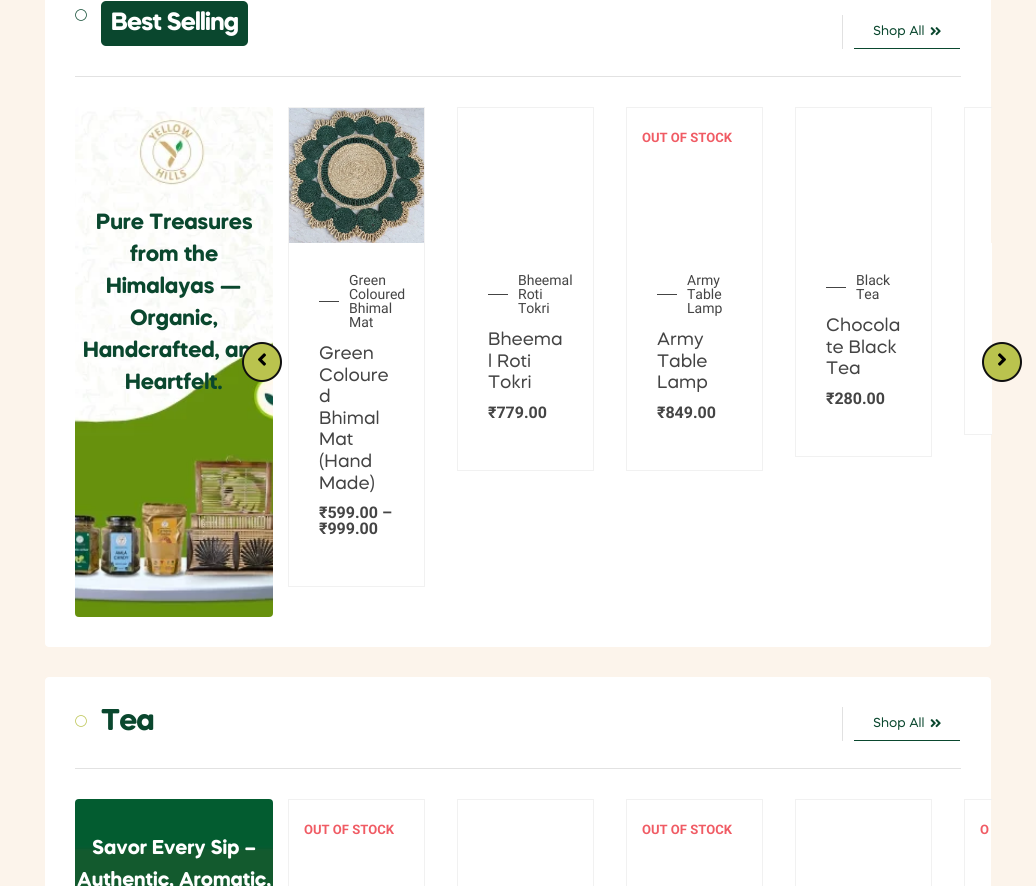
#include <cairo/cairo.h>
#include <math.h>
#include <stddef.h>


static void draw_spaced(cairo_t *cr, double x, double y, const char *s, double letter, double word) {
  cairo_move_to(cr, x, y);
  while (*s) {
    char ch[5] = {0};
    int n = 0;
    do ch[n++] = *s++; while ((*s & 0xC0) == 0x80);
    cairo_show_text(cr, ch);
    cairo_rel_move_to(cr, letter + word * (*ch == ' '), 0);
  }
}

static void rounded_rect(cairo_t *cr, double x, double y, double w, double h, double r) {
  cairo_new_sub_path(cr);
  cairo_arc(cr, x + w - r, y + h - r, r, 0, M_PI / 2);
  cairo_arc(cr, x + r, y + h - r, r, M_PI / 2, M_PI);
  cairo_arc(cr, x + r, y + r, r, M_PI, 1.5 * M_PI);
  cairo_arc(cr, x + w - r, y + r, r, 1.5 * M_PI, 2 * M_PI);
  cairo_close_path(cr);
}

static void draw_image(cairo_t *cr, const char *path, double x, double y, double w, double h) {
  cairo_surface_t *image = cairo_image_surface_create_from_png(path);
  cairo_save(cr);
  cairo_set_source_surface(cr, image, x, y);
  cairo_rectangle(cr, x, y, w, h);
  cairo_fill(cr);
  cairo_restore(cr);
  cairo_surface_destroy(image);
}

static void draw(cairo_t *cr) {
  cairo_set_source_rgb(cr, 252 / 255.0, 244 / 255.0, 235 / 255.0);
  cairo_paint(cr);
  cairo_set_source_rgb(cr, 1, 1, 1);
  rounded_rect(cr, 45, -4, 946, 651, 4);
  cairo_fill(cr);
  draw_image(cr, "images/1.png", 75, 9, 12, 12);
  cairo_set_source_rgb(cr, 10 / 255.0, 71 / 255.0, 46 / 255.0);
  rounded_rect(cr, 101, 1, 147, 45, 5);
  cairo_fill(cr);
  cairo_set_source_rgb(cr, 225 / 255.0, 225 / 255.0, 225 / 255.0);
  cairo_rectangle(cr, 842, 15, 1, 34);
  cairo_fill(cr);
  cairo_set_source_rgb(cr, 10 / 255.0, 71 / 255.0, 46 / 255.0);
  cairo_rectangle(cr, 854, 48, 106, 1);
  cairo_fill(cr);
  draw_image(cr, "images/2.png", 930, 27, 11, 9);
  cairo_set_source_rgb(cr, 226 / 255.0, 226 / 255.0, 226 / 255.0);
  cairo_rectangle(cr, 75, 76, 886, 1);
  cairo_fill(cr);
  draw_image(cr, "images/3.png", 75, 107, 198, 510);
  cairo_rectangle(cr, 288.5, 107.5, 136, 479);
  cairo_set_source_rgb(cr, 241 / 255.0, 241 / 255.0, 241 / 255.0);
  cairo_set_line_width(cr, 1);
  cairo_stroke(cr);
  draw_image(cr, "images/5.png", 289, 108, 135, 135);
  cairo_set_source_rgb(cr, 68 / 255.0, 68 / 255.0, 68 / 255.0);
  cairo_rectangle(cr, 319, 301, 20, 1);
  cairo_fill(cr);
  cairo_rectangle(cr, 457.5, 107.5, 136, 363);
  cairo_set_source_rgb(cr, 241 / 255.0, 241 / 255.0, 241 / 255.0);
  cairo_stroke(cr);
  cairo_set_source_rgb(cr, 68 / 255.0, 68 / 255.0, 68 / 255.0);
  cairo_rectangle(cr, 488, 294, 20, 1);
  cairo_fill(cr);
  cairo_rectangle(cr, 626.5, 107.5, 136, 363);
  cairo_set_source_rgb(cr, 241 / 255.0, 241 / 255.0, 241 / 255.0);
  cairo_stroke(cr);
  cairo_set_source_rgb(cr, 68 / 255.0, 68 / 255.0, 68 / 255.0);
  cairo_rectangle(cr, 657, 294, 20, 1);
  cairo_fill(cr);
  cairo_rectangle(cr, 795.5, 107.5, 136, 349);
  cairo_set_source_rgb(cr, 241 / 255.0, 241 / 255.0, 241 / 255.0);
  cairo_stroke(cr);
  cairo_set_source_rgb(cr, 68 / 255.0, 68 / 255.0, 68 / 255.0);
  cairo_rectangle(cr, 826, 287, 20, 1);
  cairo_fill(cr);
  cairo_save(cr);
  cairo_rectangle(cr, 272, 107, 720, 510);
  cairo_clip(cr);
  cairo_rectangle(cr, 964.5, 107.5, 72, 327);
  cairo_set_source_rgb(cr, 241 / 255.0, 241 / 255.0, 241 / 255.0);
  cairo_stroke(cr);
  cairo_restore(cr);
  cairo_set_source_rgb(cr, 1, 1, 1);
  cairo_rectangle(cr, 991, 243, 1, 191);
  cairo_fill(cr);
  cairo_set_source_rgb(cr, 186 / 255.0, 195 / 255.0, 78 / 255.0);
  cairo_arc(cr, 1002, 362, 19, 0, 2 * M_PI);
  cairo_fill_preserve(cr);
  cairo_set_source_rgb(cr, 15 / 255.0, 15 / 255.0, 15 / 255.0);
  cairo_set_line_width(cr, 2);
  cairo_stroke(cr);
  draw_image(cr, "images/6.png", 998, 353, 8, 13);
  cairo_set_source_rgb(cr, 1, 1, 1);
  rounded_rect(cr, 45, 677, 946, 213, 4);
  cairo_fill(cr);
  draw_image(cr, "images/7.png", 75, 715, 12, 12);
  cairo_set_source_rgb(cr, 225 / 255.0, 225 / 255.0, 225 / 255.0);
  cairo_rectangle(cr, 842, 707, 1, 34);
  cairo_fill(cr);
  cairo_set_source_rgb(cr, 10 / 255.0, 71 / 255.0, 46 / 255.0);
  cairo_rectangle(cr, 854, 740, 106, 1);
  cairo_fill(cr);
  draw_image(cr, "images/2.png", 930, 719, 11, 9);
  cairo_set_source_rgb(cr, 226 / 255.0, 226 / 255.0, 226 / 255.0);
  cairo_rectangle(cr, 75, 768, 886, 1);
  cairo_fill(cr);
  cairo_rectangle(cr, 288.5, 799.5, 136, 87);
  cairo_set_source_rgb(cr, 241 / 255.0, 241 / 255.0, 241 / 255.0);
  cairo_set_line_width(cr, 1);
  cairo_stroke(cr);
  cairo_rectangle(cr, 457.5, 799.5, 136, 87);
  cairo_stroke(cr);
  cairo_rectangle(cr, 626.5, 799.5, 136, 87);
  cairo_stroke(cr);
  cairo_rectangle(cr, 795.5, 799.5, 136, 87);
  cairo_stroke(cr);
  cairo_save(cr);
  cairo_rectangle(cr, 272, 799, 720, 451);
  cairo_clip(cr);
  cairo_rectangle(cr, 964.5, 799.5, 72, 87);
  cairo_stroke(cr);
  cairo_restore(cr);
  draw_image(cr, "images/8.png", 75, 799, 198, 87);
  cairo_select_font_face(cr, "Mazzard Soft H", CAIRO_FONT_SLANT_NORMAL, CAIRO_FONT_WEIGHT_BOLD);
  cairo_set_font_size(cr, 25);
  cairo_set_source_rgb(cr, 1, 1, 1);
  draw_spaced(cr, 111, 30, "Best Selling", -0.75, 0);
  cairo_select_font_face(cr, "Mazzard Soft H", CAIRO_FONT_SLANT_NORMAL, CAIRO_FONT_WEIGHT_NORMAL);
  cairo_set_font_size(cr, 13);
  cairo_set_source_rgb(cr, 10 / 255.0, 71 / 255.0, 46 / 255.0);
  cairo_move_to(cr, 873, 35);
  cairo_show_text(cr, "Shop All");
  cairo_select_font_face(cr, "Mazzard Soft H", CAIRO_FONT_SLANT_NORMAL, CAIRO_FONT_WEIGHT_BOLD);
  cairo_set_font_size(cr, 22);
  cairo_move_to(cr, 96, 229);
  cairo_show_text(cr, "Pure Treasures");
  cairo_move_to(cr, 130, 261);
  cairo_show_text(cr, "from the");
  cairo_move_to(cr, 106, 293);
  cairo_show_text(cr, "Himalayas —");
  cairo_move_to(cr, 130, 325);
  cairo_show_text(cr, "Organic,");
  cairo_move_to(cr, 83, 357);
  cairo_show_text(cr, "Handcrafted, an");
  cairo_move_to(cr, 125, 389);
  cairo_show_text(cr, "Heartfelt.");
  cairo_set_source_rgb(cr, 186 / 255.0, 195 / 255.0, 78 / 255.0);
  cairo_new_path(cr);
  cairo_arc(cr, 262, 362, 19, 0, 2 * M_PI);
  cairo_fill_preserve(cr);
  cairo_set_source_rgb(cr, 15 / 255.0, 15 / 255.0, 15 / 255.0);
  cairo_set_line_width(cr, 2);
  cairo_stroke(cr);
  draw_image(cr, "images/4.png", 258, 353, 8, 13);
  cairo_select_font_face(cr, "Roboto", CAIRO_FONT_SLANT_NORMAL, CAIRO_FONT_WEIGHT_NORMAL);
  cairo_set_font_size(cr, 14);
  cairo_set_source_rgb(cr, 68 / 255.0, 68 / 255.0, 68 / 255.0);
  cairo_move_to(cr, 349, 285);
  cairo_show_text(cr, "Green");
  cairo_move_to(cr, 349, 299);
  cairo_show_text(cr, "Coloured");
  cairo_move_to(cr, 349, 313);
  cairo_show_text(cr, "Bhimal");
  cairo_move_to(cr, 349, 327);
  cairo_show_text(cr, "Mat");
  cairo_select_font_face(cr, "Mazzard Soft H", CAIRO_FONT_SLANT_NORMAL, CAIRO_FONT_WEIGHT_NORMAL);
  cairo_set_font_size(cr, 18);
  cairo_move_to(cr, 319, 359);
  cairo_show_text(cr, "Green");
  cairo_move_to(cr, 319, 381);
  cairo_show_text(cr, "Coloure");
  cairo_move_to(cr, 319, 402);
  cairo_show_text(cr, "d");
  cairo_move_to(cr, 319, 424);
  cairo_show_text(cr, "Bhimal");
  cairo_move_to(cr, 319, 445);
  cairo_show_text(cr, "Mat");
  cairo_move_to(cr, 319, 467);
  cairo_show_text(cr, "(Hand");
  cairo_move_to(cr, 319, 489);
  cairo_show_text(cr, "Made)");
  cairo_select_font_face(cr, "Roboto", CAIRO_FONT_SLANT_NORMAL, CAIRO_FONT_WEIGHT_BOLD);
  cairo_set_font_size(cr, 16);
  cairo_move_to(cr, 319, 518);
  cairo_show_text(cr, "₹599.00 –");
  cairo_move_to(cr, 319, 534);
  cairo_show_text(cr, "₹999.00");
  cairo_select_font_face(cr, "Roboto", CAIRO_FONT_SLANT_NORMAL, CAIRO_FONT_WEIGHT_NORMAL);
  cairo_set_font_size(cr, 14);
  cairo_move_to(cr, 518, 285);
  cairo_show_text(cr, "Bheemal");
  cairo_move_to(cr, 518, 299);
  cairo_show_text(cr, "Roti");
  cairo_move_to(cr, 518, 313);
  cairo_show_text(cr, "Tokri");
  cairo_select_font_face(cr, "Mazzard Soft H", CAIRO_FONT_SLANT_NORMAL, CAIRO_FONT_WEIGHT_NORMAL);
  cairo_set_font_size(cr, 18);
  cairo_move_to(cr, 488, 345);
  cairo_show_text(cr, "Bheema");
  cairo_move_to(cr, 488, 367);
  cairo_show_text(cr, "l Roti");
  cairo_move_to(cr, 488, 388);
  cairo_show_text(cr, "Tokri");
  cairo_select_font_face(cr, "Roboto", CAIRO_FONT_SLANT_NORMAL, CAIRO_FONT_WEIGHT_BOLD);
  cairo_set_font_size(cr, 16);
  cairo_move_to(cr, 488, 418);
  cairo_show_text(cr, "₹779.00");
  cairo_set_font_size(cr, 13);
  cairo_set_source_rgb(cr, 240 / 255.0, 91 / 255.0, 100 / 255.0);
  cairo_move_to(cr, 642, 142);
  cairo_show_text(cr, "OUT OF STOCK");
  cairo_select_font_face(cr, "Roboto", CAIRO_FONT_SLANT_NORMAL, CAIRO_FONT_WEIGHT_NORMAL);
  cairo_set_font_size(cr, 14);
  cairo_set_source_rgb(cr, 68 / 255.0, 68 / 255.0, 68 / 255.0);
  cairo_move_to(cr, 687, 285);
  cairo_show_text(cr, "Army");
  cairo_move_to(cr, 687, 299);
  cairo_show_text(cr, "Table");
  cairo_move_to(cr, 687, 313);
  cairo_show_text(cr, "Lamp");
  cairo_select_font_face(cr, "Mazzard Soft H", CAIRO_FONT_SLANT_NORMAL, CAIRO_FONT_WEIGHT_NORMAL);
  cairo_set_font_size(cr, 18);
  cairo_move_to(cr, 657, 345);
  cairo_show_text(cr, "Army");
  cairo_move_to(cr, 657, 367);
  cairo_show_text(cr, "Table");
  cairo_move_to(cr, 657, 388);
  cairo_show_text(cr, "Lamp");
  cairo_select_font_face(cr, "Roboto", CAIRO_FONT_SLANT_NORMAL, CAIRO_FONT_WEIGHT_BOLD);
  cairo_set_font_size(cr, 16);
  cairo_move_to(cr, 657, 418);
  cairo_show_text(cr, "₹849.00");
  cairo_select_font_face(cr, "Roboto", CAIRO_FONT_SLANT_NORMAL, CAIRO_FONT_WEIGHT_NORMAL);
  cairo_set_font_size(cr, 14);
  cairo_move_to(cr, 856, 285);
  cairo_show_text(cr, "Black");
  cairo_move_to(cr, 856, 299);
  cairo_show_text(cr, "Tea");
  cairo_select_font_face(cr, "Mazzard Soft H", CAIRO_FONT_SLANT_NORMAL, CAIRO_FONT_WEIGHT_NORMAL);
  cairo_set_font_size(cr, 18);
  cairo_move_to(cr, 826, 331);
  cairo_show_text(cr, "Chocola");
  cairo_move_to(cr, 826, 353);
  cairo_show_text(cr, "te Black");
  cairo_move_to(cr, 826, 374);
  cairo_show_text(cr, "Tea");
  cairo_select_font_face(cr, "Roboto", CAIRO_FONT_SLANT_NORMAL, CAIRO_FONT_WEIGHT_BOLD);
  cairo_set_font_size(cr, 16);
  cairo_move_to(cr, 826, 404);
  cairo_show_text(cr, "₹280.00");
  cairo_select_font_face(cr, "Mazzard Soft H", CAIRO_FONT_SLANT_NORMAL, CAIRO_FONT_WEIGHT_BOLD);
  cairo_set_font_size(cr, 30);
  cairo_set_source_rgb(cr, 10 / 255.0, 71 / 255.0, 46 / 255.0);
  draw_spaced(cr, 101, 730, "Tea", -0.75, 0);
  cairo_select_font_face(cr, "Mazzard Soft H", CAIRO_FONT_SLANT_NORMAL, CAIRO_FONT_WEIGHT_NORMAL);
  cairo_set_font_size(cr, 13);
  cairo_move_to(cr, 873, 727);
  cairo_show_text(cr, "Shop All");
  cairo_select_font_face(cr, "Roboto", CAIRO_FONT_SLANT_NORMAL, CAIRO_FONT_WEIGHT_BOLD);
  cairo_set_source_rgb(cr, 240 / 255.0, 91 / 255.0, 100 / 255.0);
  cairo_move_to(cr, 304, 834);
  cairo_show_text(cr, "OUT OF STOCK");
  cairo_move_to(cr, 642, 834);
  cairo_show_text(cr, "OUT OF STOCK");
  cairo_move_to(cr, 980, 834);
  cairo_show_text(cr, "O");
  cairo_select_font_face(cr, "Mazzard Soft H", CAIRO_FONT_SLANT_NORMAL, CAIRO_FONT_WEIGHT_BOLD);
  cairo_set_font_size(cr, 20);
  cairo_set_source_rgb(cr, 1, 1, 1);
  cairo_move_to(cr, 92, 854);
  cairo_show_text(cr, "Savor Every Sip –");
  cairo_move_to(cr, 77, 886);
  cairo_show_text(cr, "Authentic, Aromatic,");
}

int main(void) {
  cairo_surface_t *surface = cairo_image_surface_create(CAIRO_FORMAT_RGB24, 1036, 886);
  cairo_t *cr = cairo_create(surface);
  cairo_font_options_t *options = cairo_font_options_create();
  cairo_font_options_set_hint_metrics(options, CAIRO_HINT_METRICS_OFF);
  cairo_font_options_set_hint_style(options, CAIRO_HINT_STYLE_NONE);
  cairo_set_font_options(cr, options);
  cairo_set_miter_limit(cr, 4);
  draw(cr);
  cairo_surface_write_to_png(surface, "out.png");
  cairo_font_options_destroy(options);
  cairo_destroy(cr);
  cairo_surface_destroy(surface);
  return 0;
}
